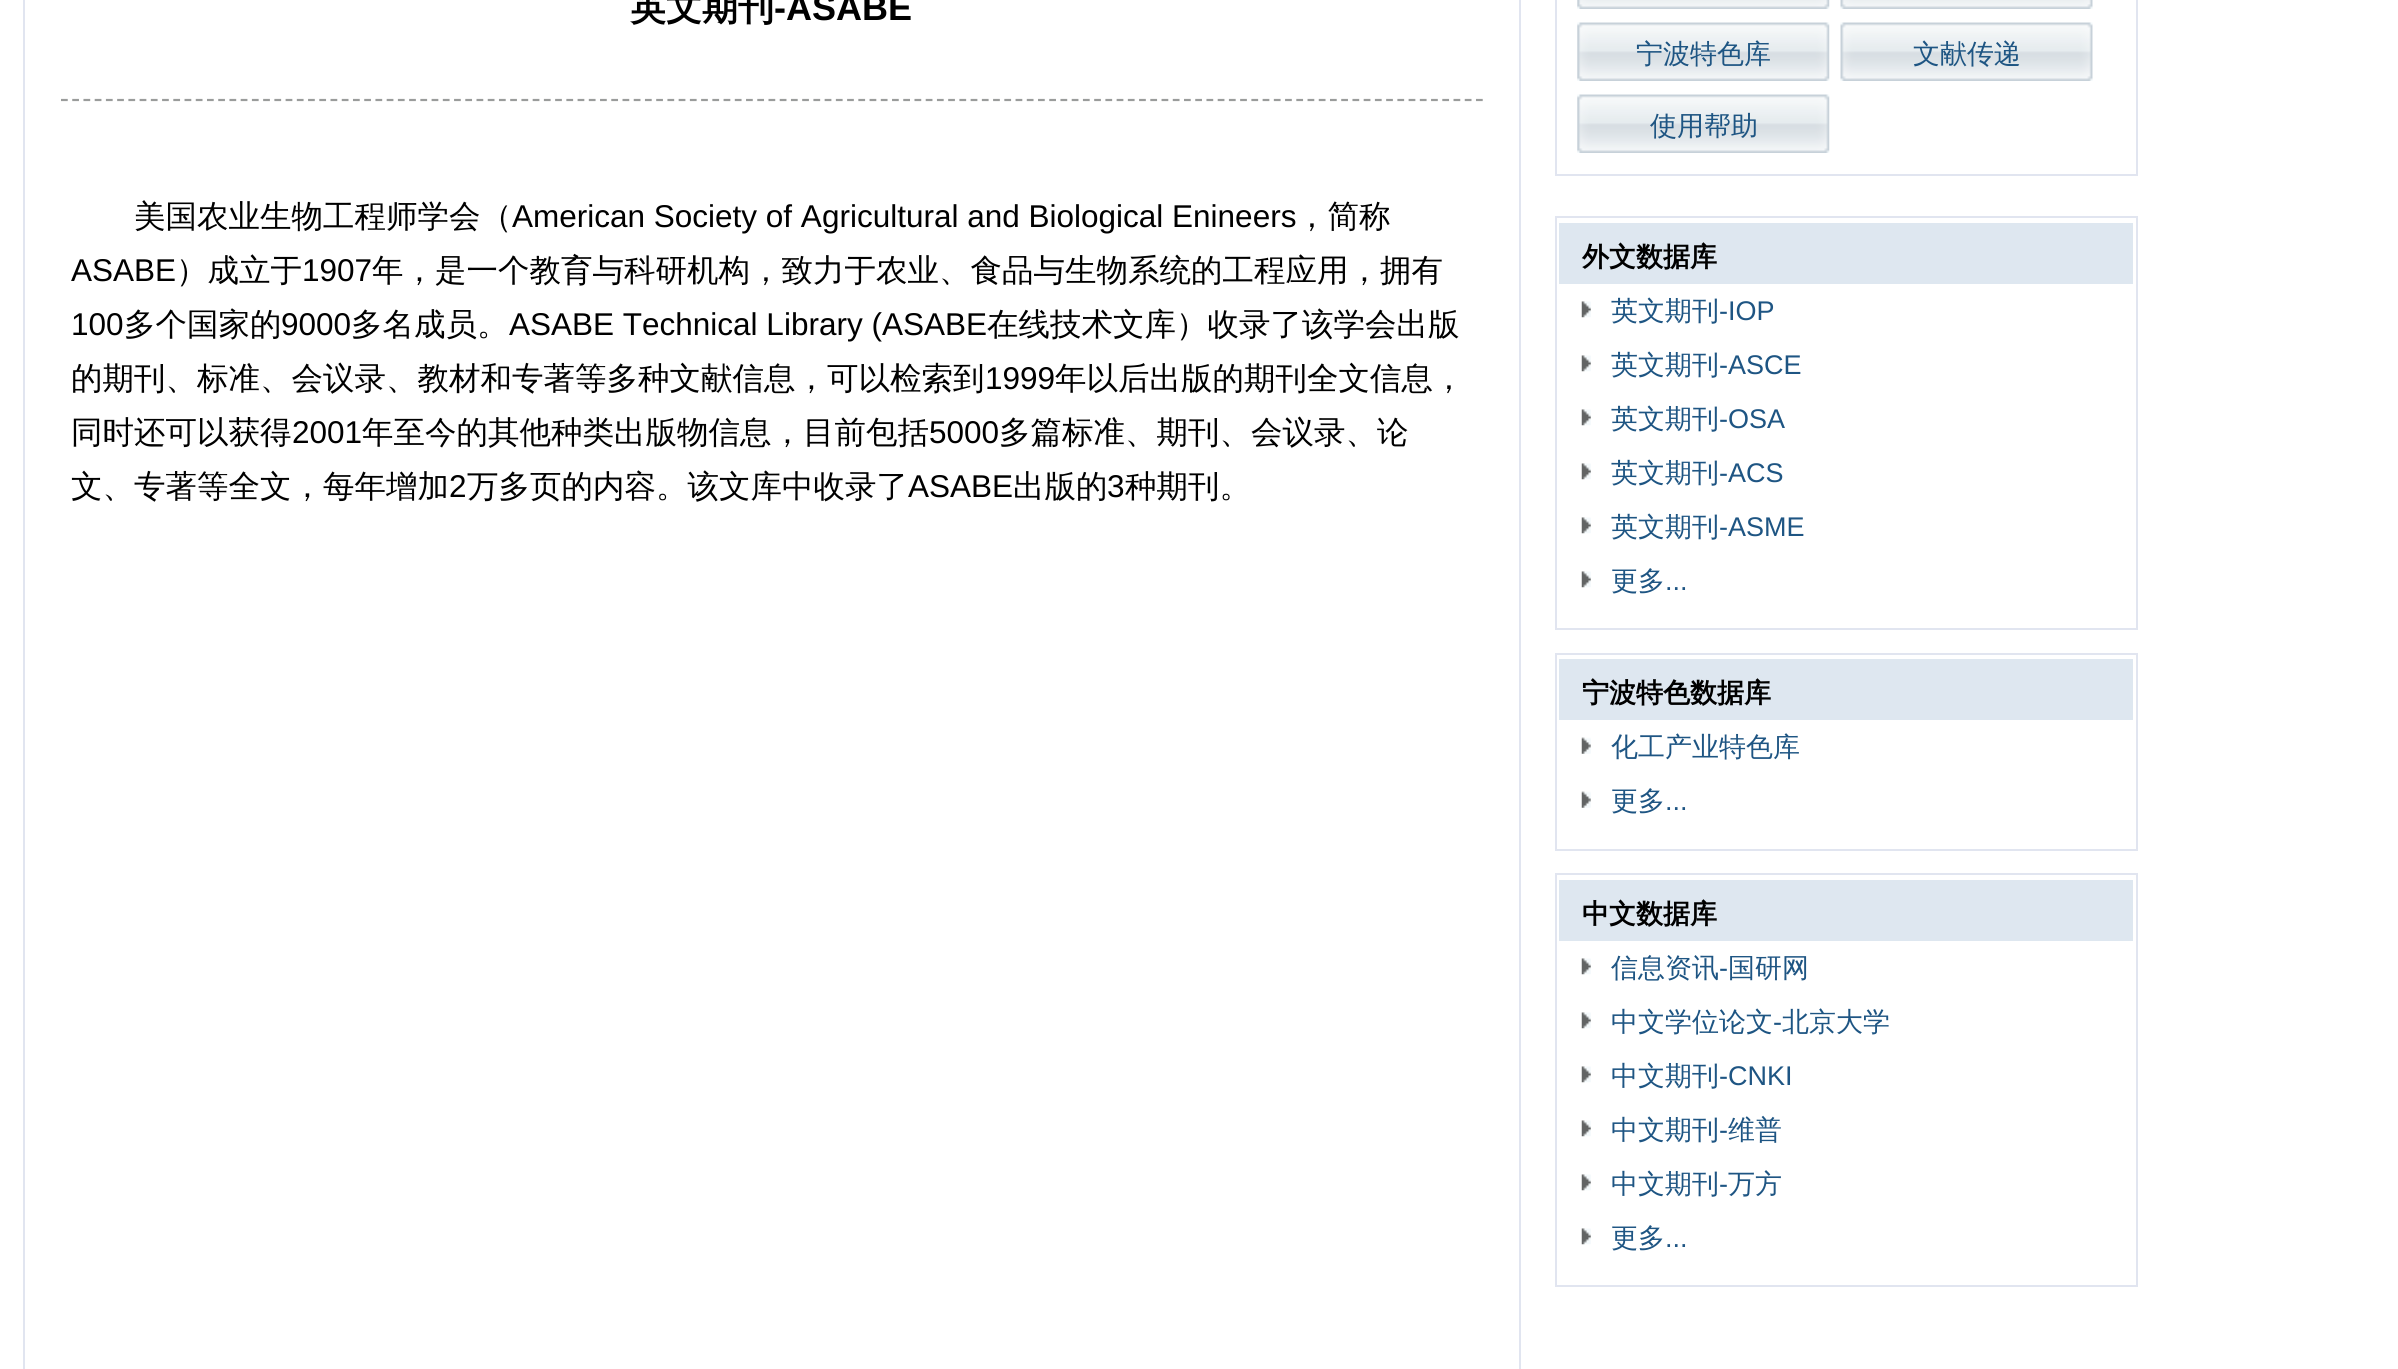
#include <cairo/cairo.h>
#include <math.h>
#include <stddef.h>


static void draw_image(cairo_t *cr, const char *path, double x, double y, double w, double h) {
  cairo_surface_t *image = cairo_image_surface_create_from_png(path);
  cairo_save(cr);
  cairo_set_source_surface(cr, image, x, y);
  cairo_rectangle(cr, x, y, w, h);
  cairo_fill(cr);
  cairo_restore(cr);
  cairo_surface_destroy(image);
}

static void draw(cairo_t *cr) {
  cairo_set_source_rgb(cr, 1, 1, 1);
  cairo_paint(cr);
  cairo_rectangle(cr, 24, -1, 1496, 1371);
  cairo_set_source_rgb(cr, 225 / 255.0, 229 / 255.0, 240 / 255.0);
  cairo_stroke(cr);
  cairo_new_path(cr);
  cairo_move_to(cr, 61, 100);
  cairo_line_to(cr, 1483, 100);
  cairo_set_source_rgb(cr, 154 / 255.0, 156 / 255.0, 155 / 255.0);
  cairo_set_line_width(cr, 2.2);
  cairo_set_dash(cr, (double[]){6.75, 4.48}, 2, 0);
  cairo_stroke(cr);
  cairo_rectangle(cr, 1556, -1, 581, 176);
  cairo_set_source_rgb(cr, 225 / 255.0, 229 / 255.0, 240 / 255.0);
  cairo_set_line_width(cr, 2);
  cairo_set_dash(cr, NULL, 0, 0);
  cairo_stroke(cr);
  draw_image(cr, "images/1.png", 1577, 0, 253, 9);
  draw_image(cr, "images/2.png", 1840, 0, 253, 9);
  draw_image(cr, "images/3.png", 1577, 22, 253, 59);
  draw_image(cr, "images/4.png", 1840, 22, 253, 59);
  draw_image(cr, "images/3.png", 1577, 94, 253, 59);
  cairo_rectangle(cr, 1556, 217, 581, 412);
  cairo_stroke(cr);
  cairo_set_source_rgb(cr, 222 / 255.0, 231 / 255.0, 240 / 255.0);
  cairo_rectangle(cr, 1559, 223, 574, 61);
  cairo_fill(cr);
  draw_image(cr, "images/5.png", 1581, 301, 10, 17);
  draw_image(cr, "images/5.png", 1581, 355, 10, 17);
  draw_image(cr, "images/5.png", 1581, 409, 10, 17);
  draw_image(cr, "images/6.png", 1581, 463, 10, 17);
  draw_image(cr, "images/5.png", 1581, 517, 10, 17);
  draw_image(cr, "images/5.png", 1581, 571, 10, 17);
  cairo_rectangle(cr, 1556, 654, 581, 196);
  cairo_set_source_rgb(cr, 225 / 255.0, 229 / 255.0, 240 / 255.0);
  cairo_stroke(cr);
  cairo_set_source_rgb(cr, 222 / 255.0, 231 / 255.0, 240 / 255.0);
  cairo_rectangle(cr, 1559, 659, 574, 61);
  cairo_fill(cr);
  draw_image(cr, "images/7.png", 1581, 737, 10, 17);
  draw_image(cr, "images/8.png", 1581, 791, 10, 17);
  cairo_rectangle(cr, 1556, 874, 581, 412);
  cairo_set_source_rgb(cr, 225 / 255.0, 229 / 255.0, 240 / 255.0);
  cairo_stroke(cr);
  cairo_set_source_rgb(cr, 222 / 255.0, 231 / 255.0, 240 / 255.0);
  cairo_rectangle(cr, 1559, 880, 574, 61);
  cairo_fill(cr);
  draw_image(cr, "images/5.png", 1581, 958, 10, 17);
  draw_image(cr, "images/5.png", 1581, 1012, 10, 17);
  draw_image(cr, "images/5.png", 1581, 1066, 10, 17);
  draw_image(cr, "images/5.png", 1581, 1120, 10, 17);
  draw_image(cr, "images/5.png", 1581, 1174, 10, 17);
  draw_image(cr, "images/5.png", 1581, 1228, 10, 17);
  cairo_select_font_face(cr, "WenQuanYi Zen Hei", CAIRO_FONT_SLANT_NORMAL, CAIRO_FONT_WEIGHT_BOLD);
  cairo_set_font_size(cr, 36);
  cairo_set_source_rgb(cr, 0, 0, 0);
  cairo_move_to(cr, 630, 20);
  cairo_show_text(cr, "英文期刊");
  cairo_select_font_face(cr, "Liberation Sans", CAIRO_FONT_SLANT_NORMAL, CAIRO_FONT_WEIGHT_BOLD);
  cairo_move_to(cr, 774, 20);
  cairo_show_text(cr, "-ASABE");
  cairo_select_font_face(cr, "WenQuanYi Zen Hei Medium", CAIRO_FONT_SLANT_NORMAL, CAIRO_FONT_WEIGHT_NORMAL);
  cairo_set_font_size(cr, 31.5);
  cairo_move_to(cr, 134, 227);
  cairo_show_text(cr, "美国农业生物工程师学会（");
  cairo_select_font_face(cr, "Liberation Sans", CAIRO_FONT_SLANT_NORMAL, CAIRO_FONT_WEIGHT_NORMAL);
  cairo_move_to(cr, 512, 227);
  cairo_show_text(cr, "American Society of Agricultural and Biological Enineers");
  cairo_select_font_face(cr, "WenQuanYi Zen Hei Medium", CAIRO_FONT_SLANT_NORMAL, CAIRO_FONT_WEIGHT_NORMAL);
  cairo_move_to(cr, 1296, 227);
  cairo_show_text(cr, "，简称");
  cairo_select_font_face(cr, "Liberation Sans", CAIRO_FONT_SLANT_NORMAL, CAIRO_FONT_WEIGHT_NORMAL);
  cairo_move_to(cr, 71, 281);
  cairo_show_text(cr, "ASABE");
  cairo_select_font_face(cr, "WenQuanYi Zen Hei Medium", CAIRO_FONT_SLANT_NORMAL, CAIRO_FONT_WEIGHT_NORMAL);
  cairo_move_to(cr, 176, 281);
  cairo_show_text(cr, "）成立于");
  cairo_select_font_face(cr, "Liberation Sans", CAIRO_FONT_SLANT_NORMAL, CAIRO_FONT_WEIGHT_NORMAL);
  cairo_move_to(cr, 302, 281);
  cairo_show_text(cr, "1907");
  cairo_select_font_face(cr, "WenQuanYi Zen Hei Medium", CAIRO_FONT_SLANT_NORMAL, CAIRO_FONT_WEIGHT_NORMAL);
  cairo_move_to(cr, 372, 281);
  cairo_show_text(cr, "年，是一个教育与科研机构，致力于农业、食品与生物系统的工程应用，拥有");
  cairo_select_font_face(cr, "Liberation Sans", CAIRO_FONT_SLANT_NORMAL, CAIRO_FONT_WEIGHT_NORMAL);
  cairo_move_to(cr, 71, 335);
  cairo_show_text(cr, "100");
  cairo_select_font_face(cr, "WenQuanYi Zen Hei Medium", CAIRO_FONT_SLANT_NORMAL, CAIRO_FONT_WEIGHT_NORMAL);
  cairo_move_to(cr, 124, 335);
  cairo_show_text(cr, "多个国家的");
  cairo_select_font_face(cr, "Liberation Sans", CAIRO_FONT_SLANT_NORMAL, CAIRO_FONT_WEIGHT_NORMAL);
  cairo_move_to(cr, 281, 335);
  cairo_show_text(cr, "9000");
  cairo_select_font_face(cr, "WenQuanYi Zen Hei Medium", CAIRO_FONT_SLANT_NORMAL, CAIRO_FONT_WEIGHT_NORMAL);
  cairo_move_to(cr, 351, 335);
  cairo_show_text(cr, "多名成员。");
  cairo_select_font_face(cr, "Liberation Sans", CAIRO_FONT_SLANT_NORMAL, CAIRO_FONT_WEIGHT_NORMAL);
  cairo_move_to(cr, 509, 335);
  cairo_show_text(cr, "ASABE Technical Library (ASABE");
  cairo_select_font_face(cr, "WenQuanYi Zen Hei Medium", CAIRO_FONT_SLANT_NORMAL, CAIRO_FONT_WEIGHT_NORMAL);
  cairo_move_to(cr, 987, 335);
  cairo_show_text(cr, "在线技术文库）收录了该学会出版");
  cairo_move_to(cr, 71, 389);
  cairo_show_text(cr, "的期刊、标准、会议录、教材和专著等多种文献信息，可以检索到");
  cairo_select_font_face(cr, "Liberation Sans", CAIRO_FONT_SLANT_NORMAL, CAIRO_FONT_WEIGHT_NORMAL);
  cairo_move_to(cr, 985, 389);
  cairo_show_text(cr, "1999");
  cairo_select_font_face(cr, "WenQuanYi Zen Hei Medium", CAIRO_FONT_SLANT_NORMAL, CAIRO_FONT_WEIGHT_NORMAL);
  cairo_move_to(cr, 1055, 389);
  cairo_show_text(cr, "年以后出版的期刊全文信息，");
  cairo_move_to(cr, 71, 443);
  cairo_show_text(cr, "同时还可以获得");
  cairo_select_font_face(cr, "Liberation Sans", CAIRO_FONT_SLANT_NORMAL, CAIRO_FONT_WEIGHT_NORMAL);
  cairo_move_to(cr, 292, 443);
  cairo_show_text(cr, "2001");
  cairo_select_font_face(cr, "WenQuanYi Zen Hei Medium", CAIRO_FONT_SLANT_NORMAL, CAIRO_FONT_WEIGHT_NORMAL);
  cairo_move_to(cr, 362, 443);
  cairo_show_text(cr, "年至今的其他种类出版物信息，目前包括");
  cairo_select_font_face(cr, "Liberation Sans", CAIRO_FONT_SLANT_NORMAL, CAIRO_FONT_WEIGHT_NORMAL);
  cairo_move_to(cr, 929, 443);
  cairo_show_text(cr, "5000");
  cairo_select_font_face(cr, "WenQuanYi Zen Hei Medium", CAIRO_FONT_SLANT_NORMAL, CAIRO_FONT_WEIGHT_NORMAL);
  cairo_move_to(cr, 999, 443);
  cairo_show_text(cr, "多篇标准、期刊、会议录、论");
  cairo_move_to(cr, 71, 497);
  cairo_show_text(cr, "文、专著等全文，每年增加");
  cairo_select_font_face(cr, "Liberation Sans", CAIRO_FONT_SLANT_NORMAL, CAIRO_FONT_WEIGHT_NORMAL);
  cairo_move_to(cr, 449, 497);
  cairo_show_text(cr, "2");
  cairo_select_font_face(cr, "WenQuanYi Zen Hei Medium", CAIRO_FONT_SLANT_NORMAL, CAIRO_FONT_WEIGHT_NORMAL);
  cairo_move_to(cr, 467, 497);
  cairo_show_text(cr, "万多页的内容。该文库中收录了");
  cairo_select_font_face(cr, "Liberation Sans", CAIRO_FONT_SLANT_NORMAL, CAIRO_FONT_WEIGHT_NORMAL);
  cairo_move_to(cr, 908, 497);
  cairo_show_text(cr, "ASABE");
  cairo_select_font_face(cr, "WenQuanYi Zen Hei Medium", CAIRO_FONT_SLANT_NORMAL, CAIRO_FONT_WEIGHT_NORMAL);
  cairo_move_to(cr, 1013, 497);
  cairo_show_text(cr, "出版的");
  cairo_select_font_face(cr, "Liberation Sans", CAIRO_FONT_SLANT_NORMAL, CAIRO_FONT_WEIGHT_NORMAL);
  cairo_move_to(cr, 1107, 497);
  cairo_show_text(cr, "3");
  cairo_select_font_face(cr, "WenQuanYi Zen Hei Medium", CAIRO_FONT_SLANT_NORMAL, CAIRO_FONT_WEIGHT_NORMAL);
  cairo_move_to(cr, 1125, 497);
  cairo_show_text(cr, "种期刊。");
  cairo_set_font_size(cr, 27);
  cairo_set_source_rgb(cr, 30 / 255.0, 85 / 255.0, 131 / 255.0);
  cairo_move_to(cr, 1636, 63);
  cairo_show_text(cr, "宁波特色库");
  cairo_move_to(cr, 1913, 63);
  cairo_show_text(cr, "文献传递");
  cairo_move_to(cr, 1650, 135);
  cairo_show_text(cr, "使用帮助");
  cairo_select_font_face(cr, "WenQuanYi Zen Hei", CAIRO_FONT_SLANT_NORMAL, CAIRO_FONT_WEIGHT_BOLD);
  cairo_set_source_rgb(cr, 0, 0, 0);
  cairo_move_to(cr, 1582, 266);
  cairo_show_text(cr, "外文数据库");
  cairo_select_font_face(cr, "WenQuanYi Zen Hei Medium", CAIRO_FONT_SLANT_NORMAL, CAIRO_FONT_WEIGHT_NORMAL);
  cairo_set_source_rgb(cr, 30 / 255.0, 85 / 255.0, 131 / 255.0);
  cairo_move_to(cr, 1611, 320);
  cairo_show_text(cr, "英文期刊");
  cairo_select_font_face(cr, "Liberation Sans", CAIRO_FONT_SLANT_NORMAL, CAIRO_FONT_WEIGHT_NORMAL);
  cairo_move_to(cr, 1719, 320);
  cairo_show_text(cr, "-IOP");
  cairo_select_font_face(cr, "WenQuanYi Zen Hei Medium", CAIRO_FONT_SLANT_NORMAL, CAIRO_FONT_WEIGHT_NORMAL);
  cairo_move_to(cr, 1611, 374);
  cairo_show_text(cr, "英文期刊");
  cairo_select_font_face(cr, "Liberation Sans", CAIRO_FONT_SLANT_NORMAL, CAIRO_FONT_WEIGHT_NORMAL);
  cairo_move_to(cr, 1719, 374);
  cairo_show_text(cr, "-ASCE");
  cairo_select_font_face(cr, "WenQuanYi Zen Hei Medium", CAIRO_FONT_SLANT_NORMAL, CAIRO_FONT_WEIGHT_NORMAL);
  cairo_move_to(cr, 1611, 428);
  cairo_show_text(cr, "英文期刊");
  cairo_select_font_face(cr, "Liberation Sans", CAIRO_FONT_SLANT_NORMAL, CAIRO_FONT_WEIGHT_NORMAL);
  cairo_move_to(cr, 1719, 428);
  cairo_show_text(cr, "-OSA");
  cairo_select_font_face(cr, "WenQuanYi Zen Hei Medium", CAIRO_FONT_SLANT_NORMAL, CAIRO_FONT_WEIGHT_NORMAL);
  cairo_move_to(cr, 1611, 482);
  cairo_show_text(cr, "英文期刊");
  cairo_select_font_face(cr, "Liberation Sans", CAIRO_FONT_SLANT_NORMAL, CAIRO_FONT_WEIGHT_NORMAL);
  cairo_move_to(cr, 1719, 482);
  cairo_show_text(cr, "-ACS");
  cairo_select_font_face(cr, "WenQuanYi Zen Hei Medium", CAIRO_FONT_SLANT_NORMAL, CAIRO_FONT_WEIGHT_NORMAL);
  cairo_move_to(cr, 1611, 536);
  cairo_show_text(cr, "英文期刊");
  cairo_select_font_face(cr, "Liberation Sans", CAIRO_FONT_SLANT_NORMAL, CAIRO_FONT_WEIGHT_NORMAL);
  cairo_move_to(cr, 1719, 536);
  cairo_show_text(cr, "-ASME");
  cairo_select_font_face(cr, "WenQuanYi Zen Hei Medium", CAIRO_FONT_SLANT_NORMAL, CAIRO_FONT_WEIGHT_NORMAL);
  cairo_move_to(cr, 1611, 590);
  cairo_show_text(cr, "更多");
  cairo_select_font_face(cr, "Liberation Sans", CAIRO_FONT_SLANT_NORMAL, CAIRO_FONT_WEIGHT_NORMAL);
  cairo_move_to(cr, 1665, 590);
  cairo_show_text(cr, "...");
  cairo_select_font_face(cr, "WenQuanYi Zen Hei", CAIRO_FONT_SLANT_NORMAL, CAIRO_FONT_WEIGHT_BOLD);
  cairo_set_source_rgb(cr, 0, 0, 0);
  cairo_move_to(cr, 1582, 702);
  cairo_show_text(cr, "宁波特色数据库");
  cairo_select_font_face(cr, "WenQuanYi Zen Hei Medium", CAIRO_FONT_SLANT_NORMAL, CAIRO_FONT_WEIGHT_NORMAL);
  cairo_set_source_rgb(cr, 30 / 255.0, 85 / 255.0, 131 / 255.0);
  cairo_move_to(cr, 1611, 756);
  cairo_show_text(cr, "化工产业特色库");
  cairo_move_to(cr, 1611, 810);
  cairo_show_text(cr, "更多");
  cairo_select_font_face(cr, "Liberation Sans", CAIRO_FONT_SLANT_NORMAL, CAIRO_FONT_WEIGHT_NORMAL);
  cairo_move_to(cr, 1665, 810);
  cairo_show_text(cr, "...");
  cairo_select_font_face(cr, "WenQuanYi Zen Hei", CAIRO_FONT_SLANT_NORMAL, CAIRO_FONT_WEIGHT_BOLD);
  cairo_set_source_rgb(cr, 0, 0, 0);
  cairo_move_to(cr, 1582, 923);
  cairo_show_text(cr, "中文数据库");
  cairo_select_font_face(cr, "WenQuanYi Zen Hei Medium", CAIRO_FONT_SLANT_NORMAL, CAIRO_FONT_WEIGHT_NORMAL);
  cairo_set_source_rgb(cr, 30 / 255.0, 85 / 255.0, 131 / 255.0);
  cairo_move_to(cr, 1611, 977);
  cairo_show_text(cr, "信息资讯");
  cairo_select_font_face(cr, "Liberation Sans", CAIRO_FONT_SLANT_NORMAL, CAIRO_FONT_WEIGHT_NORMAL);
  cairo_move_to(cr, 1719, 977);
  cairo_show_text(cr, "-");
  cairo_select_font_face(cr, "WenQuanYi Zen Hei Medium", CAIRO_FONT_SLANT_NORMAL, CAIRO_FONT_WEIGHT_NORMAL);
  cairo_move_to(cr, 1728, 977);
  cairo_show_text(cr, "国研网");
  cairo_move_to(cr, 1611, 1031);
  cairo_show_text(cr, "中文学位论文");
  cairo_select_font_face(cr, "Liberation Sans", CAIRO_FONT_SLANT_NORMAL, CAIRO_FONT_WEIGHT_NORMAL);
  cairo_move_to(cr, 1773, 1031);
  cairo_show_text(cr, "-");
  cairo_select_font_face(cr, "WenQuanYi Zen Hei Medium", CAIRO_FONT_SLANT_NORMAL, CAIRO_FONT_WEIGHT_NORMAL);
  cairo_move_to(cr, 1782, 1031);
  cairo_show_text(cr, "北京大学");
  cairo_move_to(cr, 1611, 1085);
  cairo_show_text(cr, "中文期刊");
  cairo_select_font_face(cr, "Liberation Sans", CAIRO_FONT_SLANT_NORMAL, CAIRO_FONT_WEIGHT_NORMAL);
  cairo_move_to(cr, 1719, 1085);
  cairo_show_text(cr, "-CNKI");
  cairo_select_font_face(cr, "WenQuanYi Zen Hei Medium", CAIRO_FONT_SLANT_NORMAL, CAIRO_FONT_WEIGHT_NORMAL);
  cairo_move_to(cr, 1611, 1139);
  cairo_show_text(cr, "中文期刊");
  cairo_select_font_face(cr, "Liberation Sans", CAIRO_FONT_SLANT_NORMAL, CAIRO_FONT_WEIGHT_NORMAL);
  cairo_move_to(cr, 1719, 1139);
  cairo_show_text(cr, "-");
  cairo_select_font_face(cr, "WenQuanYi Zen Hei Medium", CAIRO_FONT_SLANT_NORMAL, CAIRO_FONT_WEIGHT_NORMAL);
  cairo_move_to(cr, 1728, 1139);
  cairo_show_text(cr, "维普");
  cairo_move_to(cr, 1611, 1193);
  cairo_show_text(cr, "中文期刊");
  cairo_select_font_face(cr, "Liberation Sans", CAIRO_FONT_SLANT_NORMAL, CAIRO_FONT_WEIGHT_NORMAL);
  cairo_move_to(cr, 1719, 1193);
  cairo_show_text(cr, "-");
  cairo_select_font_face(cr, "WenQuanYi Zen Hei Medium", CAIRO_FONT_SLANT_NORMAL, CAIRO_FONT_WEIGHT_NORMAL);
  cairo_move_to(cr, 1728, 1193);
  cairo_show_text(cr, "万方");
  cairo_move_to(cr, 1611, 1247);
  cairo_show_text(cr, "更多");
  cairo_select_font_face(cr, "Liberation Sans", CAIRO_FONT_SLANT_NORMAL, CAIRO_FONT_WEIGHT_NORMAL);
  cairo_move_to(cr, 1665, 1247);
  cairo_show_text(cr, "...");
}

int main(void) {
  cairo_surface_t *surface = cairo_image_surface_create(CAIRO_FORMAT_RGB24, 2398, 1369);
  cairo_t *cr = cairo_create(surface);
  cairo_font_options_t *options = cairo_font_options_create();
  cairo_font_options_set_hint_metrics(options, CAIRO_HINT_METRICS_OFF);
  cairo_font_options_set_hint_style(options, CAIRO_HINT_STYLE_NONE);
  cairo_set_font_options(cr, options);
  cairo_set_miter_limit(cr, 4);
  draw(cr);
  cairo_surface_write_to_png(surface, "out.png");
  cairo_font_options_destroy(options);
  cairo_destroy(cr);
  cairo_surface_destroy(surface);
  return 0;
}
